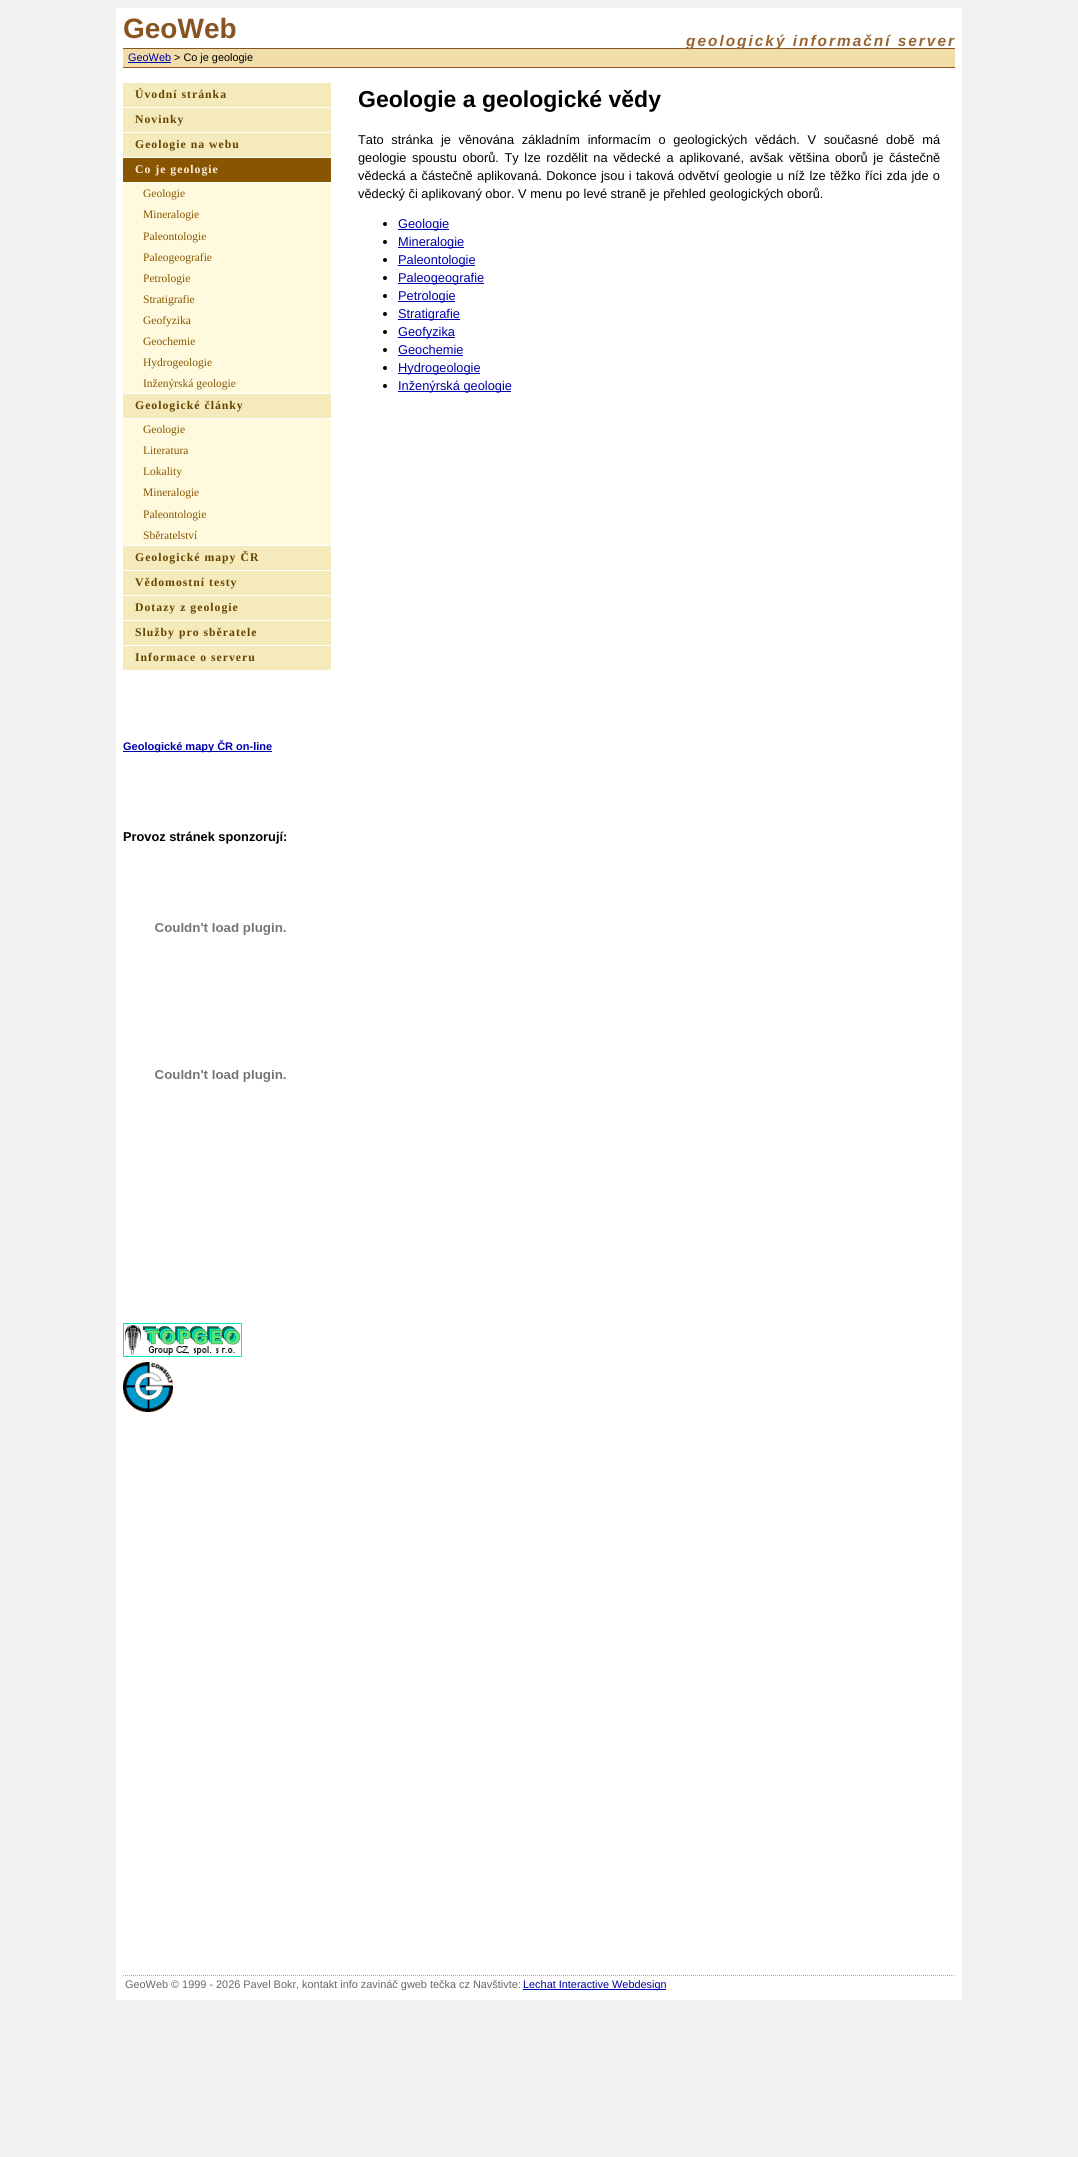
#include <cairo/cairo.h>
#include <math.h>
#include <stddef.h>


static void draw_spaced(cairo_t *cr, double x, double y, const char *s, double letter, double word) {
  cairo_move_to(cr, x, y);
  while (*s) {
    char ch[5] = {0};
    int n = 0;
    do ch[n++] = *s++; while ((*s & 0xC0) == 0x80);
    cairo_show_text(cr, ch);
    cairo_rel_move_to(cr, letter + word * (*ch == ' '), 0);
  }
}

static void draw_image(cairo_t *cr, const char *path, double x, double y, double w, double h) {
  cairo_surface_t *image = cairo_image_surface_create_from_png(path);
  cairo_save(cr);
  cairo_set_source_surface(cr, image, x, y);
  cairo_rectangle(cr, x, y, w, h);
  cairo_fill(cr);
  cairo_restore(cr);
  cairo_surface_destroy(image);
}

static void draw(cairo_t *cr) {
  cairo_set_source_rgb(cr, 241 / 255.0, 241 / 255.0, 241 / 255.0);
  cairo_paint(cr);
  cairo_set_source_rgb(cr, 1, 1, 1);
  cairo_rectangle(cr, 116, 8, 846, 1992);
  cairo_fill(cr);
  cairo_set_source_rgb(cr, 240 / 255.0, 221 / 255.0, 170 / 255.0);
  cairo_rectangle(cr, 123, 49, 832, 18);
  cairo_fill(cr);
  cairo_set_source_rgb(cr, 136 / 255.0, 85 / 255.0, 34 / 255.0);
  cairo_rectangle(cr, 123, 48, 832, 1);
  cairo_fill(cr);
  cairo_rectangle(cr, 123, 67, 832, 1);
  cairo_fill(cr);
  cairo_set_source_rgb(cr, 0, 0, 170 / 255.0);
  cairo_rectangle(cr, 128, 62, 43, 1);
  cairo_fill(cr);
  cairo_set_source_rgb(cr, 245 / 255.0, 234 / 255.0, 187 / 255.0);
  cairo_rectangle(cr, 123, 83, 208, 24);
  cairo_fill(cr);
  cairo_rectangle(cr, 123, 108, 208, 24);
  cairo_fill(cr);
  cairo_rectangle(cr, 123, 133, 208, 24);
  cairo_fill(cr);
  cairo_set_source_rgb(cr, 136 / 255.0, 85 / 255.0, 0);
  cairo_rectangle(cr, 123, 158, 208, 24);
  cairo_fill(cr);
  cairo_set_source_rgb(cr, 1, 250 / 255.0, 221 / 255.0);
  cairo_rectangle(cr, 123, 183, 208, 210);
  cairo_fill(cr);
  cairo_set_source_rgb(cr, 245 / 255.0, 234 / 255.0, 187 / 255.0);
  cairo_rectangle(cr, 123, 394, 208, 24);
  cairo_fill(cr);
  cairo_set_source_rgb(cr, 1, 250 / 255.0, 221 / 255.0);
  cairo_rectangle(cr, 123, 419, 208, 126);
  cairo_fill(cr);
  cairo_set_source_rgb(cr, 245 / 255.0, 234 / 255.0, 187 / 255.0);
  cairo_rectangle(cr, 123, 546, 208, 24);
  cairo_fill(cr);
  cairo_rectangle(cr, 123, 571, 208, 24);
  cairo_fill(cr);
  cairo_rectangle(cr, 123, 596, 208, 24);
  cairo_fill(cr);
  cairo_rectangle(cr, 123, 621, 208, 24);
  cairo_fill(cr);
  cairo_rectangle(cr, 123, 646, 208, 24);
  cairo_fill(cr);
  cairo_set_source_rgb(cr, 0, 0, 170 / 255.0);
  cairo_rectangle(cr, 123, 751, 149, 1);
  cairo_fill(cr);
  draw_image(cr, "images/1.png", 155, 923, 131, 12);
  draw_image(cr, "images/1.png", 155, 1070, 131, 12);
  draw_image(cr, "images/2.png", 123, 1323, 119, 34);
  draw_image(cr, "images/3.png", 123, 1362, 50, 50);
  cairo_set_source_rgb(cr, 0, 0, 0);
  cairo_arc(cr, 385, 224, 2, 0, 2 * M_PI);
  cairo_fill(cr);
  cairo_set_source_rgb(cr, 0, 0, 170 / 255.0);
  cairo_rectangle(cr, 398, 229, 51, 1);
  cairo_fill(cr);
  cairo_set_source_rgb(cr, 0, 0, 0);
  cairo_arc(cr, 385, 242, 2, 0, 2 * M_PI);
  cairo_fill(cr);
  cairo_set_source_rgb(cr, 0, 0, 170 / 255.0);
  cairo_rectangle(cr, 398, 247, 66, 1);
  cairo_fill(cr);
  cairo_set_source_rgb(cr, 0, 0, 0);
  cairo_arc(cr, 385, 260, 2, 0, 2 * M_PI);
  cairo_fill(cr);
  cairo_set_source_rgb(cr, 0, 0, 170 / 255.0);
  cairo_rectangle(cr, 398, 265, 77, 1);
  cairo_fill(cr);
  cairo_set_source_rgb(cr, 0, 0, 0);
  cairo_arc(cr, 385, 278, 2, 0, 2 * M_PI);
  cairo_fill(cr);
  cairo_set_source_rgb(cr, 0, 0, 170 / 255.0);
  cairo_rectangle(cr, 398, 283, 86, 1);
  cairo_fill(cr);
  cairo_set_source_rgb(cr, 0, 0, 0);
  cairo_arc(cr, 385, 296, 2, 0, 2 * M_PI);
  cairo_fill(cr);
  cairo_set_source_rgb(cr, 0, 0, 170 / 255.0);
  cairo_rectangle(cr, 398, 301, 57, 1);
  cairo_fill(cr);
  cairo_set_source_rgb(cr, 0, 0, 0);
  cairo_arc(cr, 385, 314, 2, 0, 2 * M_PI);
  cairo_fill(cr);
  cairo_set_source_rgb(cr, 0, 0, 170 / 255.0);
  cairo_rectangle(cr, 398, 319, 62, 1);
  cairo_fill(cr);
  cairo_set_source_rgb(cr, 0, 0, 0);
  cairo_arc(cr, 385, 332, 2, 0, 2 * M_PI);
  cairo_fill(cr);
  cairo_set_source_rgb(cr, 0, 0, 170 / 255.0);
  cairo_rectangle(cr, 398, 337, 57, 1);
  cairo_fill(cr);
  cairo_set_source_rgb(cr, 0, 0, 0);
  cairo_arc(cr, 385, 350, 2, 0, 2 * M_PI);
  cairo_fill(cr);
  cairo_set_source_rgb(cr, 0, 0, 170 / 255.0);
  cairo_rectangle(cr, 398, 355, 65, 1);
  cairo_fill(cr);
  cairo_set_source_rgb(cr, 0, 0, 0);
  cairo_arc(cr, 385, 368, 2, 0, 2 * M_PI);
  cairo_fill(cr);
  cairo_set_source_rgb(cr, 0, 0, 170 / 255.0);
  cairo_rectangle(cr, 398, 373, 82, 1);
  cairo_fill(cr);
  cairo_set_source_rgb(cr, 0, 0, 0);
  cairo_arc(cr, 385, 386, 2, 0, 2 * M_PI);
  cairo_fill(cr);
  cairo_set_source_rgb(cr, 0, 0, 170 / 255.0);
  cairo_rectangle(cr, 398, 391, 113, 1);
  cairo_fill(cr);
  cairo_new_path(cr);
  cairo_move_to(cr, 123, 1975.5);
  cairo_line_to(cr, 955, 1975.5);
  cairo_set_source_rgb(cr, 170 / 255.0, 170 / 255.0, 170 / 255.0);
  cairo_set_line_width(cr, 1);
  cairo_set_dash(cr, (double[]){1, 1}, 2, 0);
  cairo_stroke(cr);
  cairo_set_source_rgb(cr, 0, 0, 170 / 255.0);
  cairo_rectangle(cr, 523, 1989, 143, 1);
  cairo_fill(cr);
  cairo_select_font_face(cr, "Liberation Sans", CAIRO_FONT_SLANT_NORMAL, CAIRO_FONT_WEIGHT_BOLD);
  cairo_set_font_size(cr, 28);
  cairo_set_source_rgb(cr, 136 / 255.0, 85 / 255.0, 34 / 255.0);
  cairo_move_to(cr, 123, 38);
  cairo_show_text(cr, "GeoWeb");
  cairo_select_font_face(cr, "Liberation Sans", CAIRO_FONT_SLANT_ITALIC, CAIRO_FONT_WEIGHT_BOLD);
  cairo_set_font_size(cr, 15.4);
  cairo_set_source_rgb(cr, 153 / 255.0, 102 / 255.0, 51 / 255.0);
  draw_spaced(cr, 686, 46, "geologický informační server", 2, 0);
  cairo_select_font_face(cr, "Liberation Sans", CAIRO_FONT_SLANT_NORMAL, CAIRO_FONT_WEIGHT_NORMAL);
  cairo_set_font_size(cr, 10.9);
  cairo_set_source_rgb(cr, 0, 0, 170 / 255.0);
  cairo_move_to(cr, 128, 61);
  cairo_show_text(cr, "GeoWeb");
  cairo_set_source_rgb(cr, 0, 0, 0);
  cairo_move_to(cr, 174, 61);
  cairo_show_text(cr, "> Co je geologie");
  cairo_select_font_face(cr, "Liberation Serif", CAIRO_FONT_SLANT_NORMAL, CAIRO_FONT_WEIGHT_BOLD);
  cairo_set_font_size(cr, 11.75);
  cairo_set_source_rgb(cr, 102 / 255.0, 68 / 255.0, 0);
  draw_spaced(cr, 135, 98, "Úvodní stránka", 1, 0);
  draw_spaced(cr, 135, 123, "Novinky", 1, 0);
  draw_spaced(cr, 135, 148, "Geologie na webu", 1, 0);
  cairo_set_source_rgb(cr, 1, 238 / 255.0, 221 / 255.0);
  draw_spaced(cr, 135, 173, "Co je geologie", 1, 0);
  cairo_select_font_face(cr, "Liberation Serif", CAIRO_FONT_SLANT_NORMAL, CAIRO_FONT_WEIGHT_NORMAL);
  cairo_set_font_size(cr, 11.5);
  cairo_set_source_rgb(cr, 136 / 255.0, 85 / 255.0, 0);
  cairo_move_to(cr, 143, 197);
  cairo_show_text(cr, "Geologie");
  cairo_move_to(cr, 143, 218);
  cairo_show_text(cr, "Mineralogie");
  cairo_move_to(cr, 143, 240);
  cairo_show_text(cr, "Paleontologie");
  cairo_move_to(cr, 143, 261);
  cairo_show_text(cr, "Paleogeografie");
  cairo_move_to(cr, 143, 282);
  cairo_show_text(cr, "Petrologie");
  cairo_move_to(cr, 143, 303);
  cairo_show_text(cr, "Stratigrafie");
  cairo_move_to(cr, 143, 324);
  cairo_show_text(cr, "Geofyzika");
  cairo_move_to(cr, 143, 345);
  cairo_show_text(cr, "Geochemie");
  cairo_move_to(cr, 143, 366);
  cairo_show_text(cr, "Hydrogeologie");
  cairo_move_to(cr, 143, 387);
  cairo_show_text(cr, "Inženýrská geologie");
  cairo_select_font_face(cr, "Liberation Serif", CAIRO_FONT_SLANT_NORMAL, CAIRO_FONT_WEIGHT_BOLD);
  cairo_set_font_size(cr, 11.75);
  cairo_set_source_rgb(cr, 102 / 255.0, 68 / 255.0, 0);
  draw_spaced(cr, 135, 409, "Geologické články", 1, 0);
  cairo_select_font_face(cr, "Liberation Serif", CAIRO_FONT_SLANT_NORMAL, CAIRO_FONT_WEIGHT_NORMAL);
  cairo_set_font_size(cr, 11.5);
  cairo_set_source_rgb(cr, 136 / 255.0, 85 / 255.0, 0);
  cairo_move_to(cr, 143, 433);
  cairo_show_text(cr, "Geologie");
  cairo_move_to(cr, 143, 454);
  cairo_show_text(cr, "Literatura");
  cairo_move_to(cr, 143, 475);
  cairo_show_text(cr, "Lokality");
  cairo_move_to(cr, 143, 496);
  cairo_show_text(cr, "Mineralogie");
  cairo_move_to(cr, 143, 518);
  cairo_show_text(cr, "Paleontologie");
  cairo_move_to(cr, 143, 539);
  cairo_show_text(cr, "Sběratelství");
  cairo_select_font_face(cr, "Liberation Serif", CAIRO_FONT_SLANT_NORMAL, CAIRO_FONT_WEIGHT_BOLD);
  cairo_set_font_size(cr, 11.75);
  cairo_set_source_rgb(cr, 102 / 255.0, 68 / 255.0, 0);
  draw_spaced(cr, 135, 561, "Geologické mapy ČR", 1, 0);
  draw_spaced(cr, 135, 586, "Vědomostní testy", 1, 0);
  draw_spaced(cr, 135, 611, "Dotazy z geologie", 1, 0);
  draw_spaced(cr, 135, 636, "Služby pro sběratele", 1, 0);
  draw_spaced(cr, 135, 661, "Informace o serveru", 1, 0);
  cairo_select_font_face(cr, "Liberation Sans", CAIRO_FONT_SLANT_NORMAL, CAIRO_FONT_WEIGHT_BOLD);
  cairo_set_font_size(cr, 11);
  cairo_set_source_rgb(cr, 0, 0, 170 / 255.0);
  cairo_move_to(cr, 123, 750);
  cairo_show_text(cr, "Geologické mapy ČR on-line");
  cairo_set_font_size(cr, 12.8);
  cairo_set_source_rgb(cr, 0, 0, 0);
  cairo_move_to(cr, 123, 841);
  cairo_show_text(cr, "Provoz stránek sponzorují:");
  cairo_set_font_size(cr, 23);
  cairo_move_to(cr, 358, 107);
  cairo_show_text(cr, "Geologie a geologické vědy");
  cairo_select_font_face(cr, "Liberation Sans", CAIRO_FONT_SLANT_NORMAL, CAIRO_FONT_WEIGHT_NORMAL);
  cairo_set_font_size(cr, 12.8);
  draw_spaced(cr, 358, 144, "Tato stránka je věnována základním informacím o geologických vědách. V současné době má", 0, 4.1);
  draw_spaced(cr, 358, 162, "geologie spoustu oborů. Ty lze rozdělit na vědecké a aplikované, avšak většina oborů je částečně", 0, 2.1);
  draw_spaced(cr, 358, 180, "vědecká a částečně aplikovaná. Dokonce jsou i taková odvětví geologie u níž lze těžko říci zda jde o", 0, 0.8);
  cairo_move_to(cr, 358, 198);
  cairo_show_text(cr, "vědecký či aplikovaný obor. V menu po levé straně je přehled geologických oborů.");
  cairo_set_source_rgb(cr, 0, 0, 170 / 255.0);
  cairo_move_to(cr, 398, 228);
  cairo_show_text(cr, "Geologie");
  cairo_move_to(cr, 398, 246);
  cairo_show_text(cr, "Mineralogie");
  cairo_move_to(cr, 398, 264);
  cairo_show_text(cr, "Paleontologie");
  cairo_move_to(cr, 398, 282);
  cairo_show_text(cr, "Paleogeografie");
  cairo_move_to(cr, 398, 300);
  cairo_show_text(cr, "Petrologie");
  cairo_move_to(cr, 398, 318);
  cairo_show_text(cr, "Stratigrafie");
  cairo_move_to(cr, 398, 336);
  cairo_show_text(cr, "Geofyzika");
  cairo_move_to(cr, 398, 354);
  cairo_show_text(cr, "Geochemie");
  cairo_move_to(cr, 398, 372);
  cairo_show_text(cr, "Hydrogeologie");
  cairo_move_to(cr, 398, 390);
  cairo_show_text(cr, "Inženýrská geologie");
  cairo_set_font_size(cr, 10.9);
  cairo_set_source_rgb(cr, 102 / 255.0, 102 / 255.0, 102 / 255.0);
  cairo_move_to(cr, 125, 1988);
  cairo_show_text(cr, "GeoWeb © 1999 - 2026 Pavel Bokr, kontakt info zavináč gweb tečka cz Navštivte:");
  cairo_set_source_rgb(cr, 0, 0, 170 / 255.0);
  cairo_move_to(cr, 523, 1988);
  cairo_show_text(cr, "Lechat Interactive Webdesign");
}

int main(void) {
  cairo_surface_t *surface = cairo_image_surface_create(CAIRO_FORMAT_RGB24, 1078, 2157);
  cairo_t *cr = cairo_create(surface);
  cairo_font_options_t *options = cairo_font_options_create();
  cairo_font_options_set_hint_metrics(options, CAIRO_HINT_METRICS_OFF);
  cairo_font_options_set_hint_style(options, CAIRO_HINT_STYLE_NONE);
  cairo_set_font_options(cr, options);
  cairo_set_miter_limit(cr, 4);
  draw(cr);
  cairo_surface_write_to_png(surface, "out.png");
  cairo_font_options_destroy(options);
  cairo_destroy(cr);
  cairo_surface_destroy(surface);
  return 0;
}
